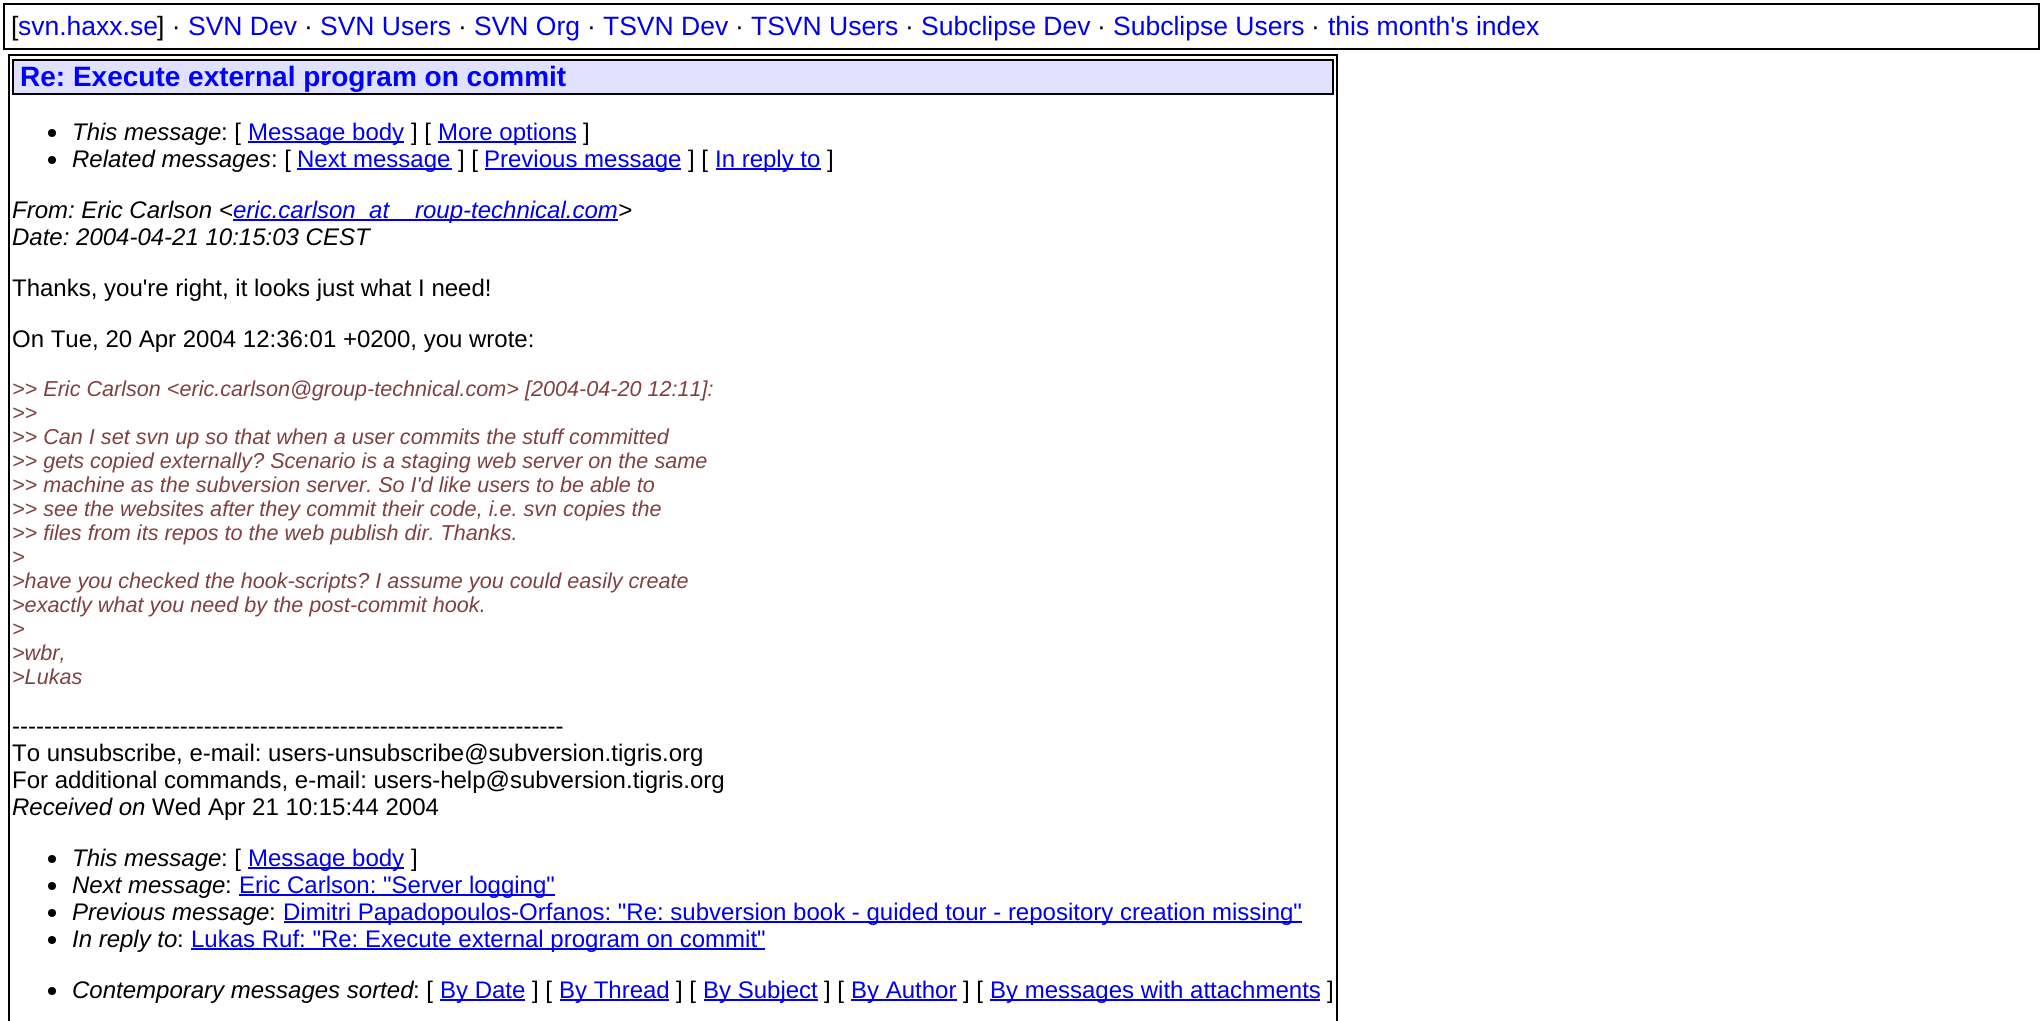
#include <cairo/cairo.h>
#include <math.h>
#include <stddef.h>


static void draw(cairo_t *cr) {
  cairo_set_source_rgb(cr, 1, 1, 1);
  cairo_paint(cr);
  cairo_rectangle(cr, 4, 4, 2035, 45);
  cairo_set_source_rgb(cr, 0, 0, 0);
  cairo_stroke(cr);
  cairo_rectangle(cr, 9, 55, 1328, 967);
  cairo_stroke(cr);
  cairo_set_source_rgb(cr, 224 / 255.0, 224 / 255.0, 1);
  cairo_rectangle(cr, 13, 60, 1320, 34);
  cairo_fill_preserve(cr);
  cairo_set_source_rgb(cr, 0, 0, 0);
  cairo_stroke(cr);
  cairo_arc(cr, 52, 133, 4, 0, 2 * M_PI);
  cairo_fill(cr);
  cairo_set_source_rgb(cr, 0, 0, 238 / 255.0);
  cairo_rectangle(cr, 248, 141, 156, 2);
  cairo_fill(cr);
  cairo_rectangle(cr, 438, 141, 138, 2);
  cairo_fill(cr);
  cairo_set_source_rgb(cr, 0, 0, 0);
  cairo_arc(cr, 52, 160, 4, 0, 2 * M_PI);
  cairo_fill(cr);
  cairo_set_source_rgb(cr, 0, 0, 238 / 255.0);
  cairo_rectangle(cr, 297, 168, 155, 2);
  cairo_fill(cr);
  cairo_rectangle(cr, 485, 168, 196, 2);
  cairo_fill(cr);
  cairo_rectangle(cr, 716, 168, 105, 2);
  cairo_fill(cr);
  cairo_rectangle(cr, 233, 219, 385, 2);
  cairo_fill(cr);
  cairo_set_source_rgb(cr, 0, 0, 0);
  cairo_arc(cr, 52, 859, 4, 0, 2 * M_PI);
  cairo_fill(cr);
  cairo_set_source_rgb(cr, 0, 0, 238 / 255.0);
  cairo_rectangle(cr, 248, 867, 156, 2);
  cairo_fill(cr);
  cairo_set_source_rgb(cr, 0, 0, 0);
  cairo_arc(cr, 52, 886, 4, 0, 2 * M_PI);
  cairo_fill(cr);
  cairo_set_source_rgb(cr, 0, 0, 238 / 255.0);
  cairo_rectangle(cr, 239, 894, 316, 2);
  cairo_fill(cr);
  cairo_set_source_rgb(cr, 0, 0, 0);
  cairo_arc(cr, 52, 913, 4, 0, 2 * M_PI);
  cairo_fill(cr);
  cairo_set_source_rgb(cr, 0, 0, 238 / 255.0);
  cairo_rectangle(cr, 284, 921, 1018, 2);
  cairo_fill(cr);
  cairo_set_source_rgb(cr, 0, 0, 0);
  cairo_arc(cr, 52, 940, 4, 0, 2 * M_PI);
  cairo_fill(cr);
  cairo_set_source_rgb(cr, 0, 0, 238 / 255.0);
  cairo_rectangle(cr, 191, 948, 574, 2);
  cairo_fill(cr);
  cairo_set_source_rgb(cr, 0, 0, 0);
  cairo_arc(cr, 52, 991, 4, 0, 2 * M_PI);
  cairo_fill(cr);
  cairo_set_source_rgb(cr, 0, 0, 238 / 255.0);
  cairo_rectangle(cr, 440, 999, 85, 2);
  cairo_fill(cr);
  cairo_rectangle(cr, 560, 999, 109, 2);
  cairo_fill(cr);
  cairo_rectangle(cr, 704, 999, 114, 2);
  cairo_fill(cr);
  cairo_rectangle(cr, 851, 999, 106, 2);
  cairo_fill(cr);
  cairo_rectangle(cr, 990, 999, 330, 2);
  cairo_fill(cr);
  cairo_select_font_face(cr, "Liberation Sans", CAIRO_FONT_SLANT_NORMAL, CAIRO_FONT_WEIGHT_NORMAL);
  cairo_set_font_size(cr, 26.5);
  cairo_set_source_rgb(cr, 0, 0, 0);
  cairo_move_to(cr, 11, 35);
  cairo_show_text(cr, "[");
  cairo_set_source_rgb(cr, 0, 0, 238 / 255.0);
  cairo_move_to(cr, 18, 35);
  cairo_show_text(cr, "svn.haxx.se");
  cairo_set_source_rgb(cr, 0, 0, 0);
  cairo_move_to(cr, 157, 35);
  cairo_show_text(cr, "] ·");
  cairo_set_source_rgb(cr, 0, 0, 238 / 255.0);
  cairo_move_to(cr, 188, 35);
  cairo_show_text(cr, "SVN Dev");
  cairo_set_source_rgb(cr, 0, 0, 0);
  cairo_move_to(cr, 304, 35);
  cairo_show_text(cr, "·");
  cairo_set_source_rgb(cr, 0, 0, 238 / 255.0);
  cairo_move_to(cr, 320, 35);
  cairo_show_text(cr, "SVN Users");
  cairo_set_source_rgb(cr, 0, 0, 0);
  cairo_move_to(cr, 458, 35);
  cairo_show_text(cr, "·");
  cairo_set_source_rgb(cr, 0, 0, 238 / 255.0);
  cairo_move_to(cr, 474, 35);
  cairo_show_text(cr, "SVN Org");
  cairo_set_source_rgb(cr, 0, 0, 0);
  cairo_move_to(cr, 587, 35);
  cairo_show_text(cr, "·");
  cairo_set_source_rgb(cr, 0, 0, 238 / 255.0);
  cairo_move_to(cr, 603, 35);
  cairo_show_text(cr, "TSVN Dev");
  cairo_set_source_rgb(cr, 0, 0, 0);
  cairo_move_to(cr, 735, 35);
  cairo_show_text(cr, "·");
  cairo_set_source_rgb(cr, 0, 0, 238 / 255.0);
  cairo_move_to(cr, 751, 35);
  cairo_show_text(cr, "TSVN Users");
  cairo_set_source_rgb(cr, 0, 0, 0);
  cairo_move_to(cr, 905, 35);
  cairo_show_text(cr, "·");
  cairo_set_source_rgb(cr, 0, 0, 238 / 255.0);
  cairo_move_to(cr, 921, 35);
  cairo_show_text(cr, "Subclipse Dev");
  cairo_set_source_rgb(cr, 0, 0, 0);
  cairo_move_to(cr, 1097, 35);
  cairo_show_text(cr, "·");
  cairo_set_source_rgb(cr, 0, 0, 238 / 255.0);
  cairo_move_to(cr, 1113, 35);
  cairo_show_text(cr, "Subclipse Users");
  cairo_set_source_rgb(cr, 0, 0, 0);
  cairo_move_to(cr, 1311, 35);
  cairo_show_text(cr, "·");
  cairo_set_source_rgb(cr, 0, 0, 238 / 255.0);
  cairo_move_to(cr, 1328, 35);
  cairo_show_text(cr, "this month's index");
  cairo_select_font_face(cr, "Liberation Sans", CAIRO_FONT_SLANT_NORMAL, CAIRO_FONT_WEIGHT_BOLD);
  cairo_set_font_size(cr, 28);
  cairo_set_source_rgb(cr, 0, 0, 1);
  cairo_move_to(cr, 20, 86);
  cairo_show_text(cr, "Re: Execute external program on commit");
  cairo_select_font_face(cr, "Liberation Sans", CAIRO_FONT_SLANT_ITALIC, CAIRO_FONT_WEIGHT_NORMAL);
  cairo_set_font_size(cr, 24);
  cairo_set_source_rgb(cr, 0, 0, 0);
  cairo_move_to(cr, 72, 140);
  cairo_show_text(cr, "This message");
  cairo_select_font_face(cr, "Liberation Sans", CAIRO_FONT_SLANT_NORMAL, CAIRO_FONT_WEIGHT_NORMAL);
  cairo_move_to(cr, 221, 140);
  cairo_show_text(cr, ": [");
  cairo_set_source_rgb(cr, 0, 0, 238 / 255.0);
  cairo_move_to(cr, 248, 140);
  cairo_show_text(cr, "Message body");
  cairo_set_source_rgb(cr, 0, 0, 0);
  cairo_move_to(cr, 411, 140);
  cairo_show_text(cr, "] [");
  cairo_set_source_rgb(cr, 0, 0, 238 / 255.0);
  cairo_move_to(cr, 438, 140);
  cairo_show_text(cr, "More options");
  cairo_set_source_rgb(cr, 0, 0, 0);
  cairo_move_to(cr, 583, 140);
  cairo_show_text(cr, "]");
  cairo_select_font_face(cr, "Liberation Sans", CAIRO_FONT_SLANT_ITALIC, CAIRO_FONT_WEIGHT_NORMAL);
  cairo_move_to(cr, 72, 167);
  cairo_show_text(cr, "Related messages");
  cairo_select_font_face(cr, "Liberation Sans", CAIRO_FONT_SLANT_NORMAL, CAIRO_FONT_WEIGHT_NORMAL);
  cairo_move_to(cr, 271, 167);
  cairo_show_text(cr, ": [");
  cairo_set_source_rgb(cr, 0, 0, 238 / 255.0);
  cairo_move_to(cr, 297, 167);
  cairo_show_text(cr, "Next message");
  cairo_set_source_rgb(cr, 0, 0, 0);
  cairo_move_to(cr, 458, 167);
  cairo_show_text(cr, "] [");
  cairo_set_source_rgb(cr, 0, 0, 238 / 255.0);
  cairo_move_to(cr, 484, 167);
  cairo_show_text(cr, "Previous message");
  cairo_set_source_rgb(cr, 0, 0, 0);
  cairo_move_to(cr, 688, 167);
  cairo_show_text(cr, "] [");
  cairo_set_source_rgb(cr, 0, 0, 238 / 255.0);
  cairo_move_to(cr, 715, 167);
  cairo_show_text(cr, "In reply to");
  cairo_set_source_rgb(cr, 0, 0, 0);
  cairo_move_to(cr, 827, 167);
  cairo_show_text(cr, "]");
  cairo_select_font_face(cr, "Liberation Sans", CAIRO_FONT_SLANT_ITALIC, CAIRO_FONT_WEIGHT_NORMAL);
  cairo_move_to(cr, 12, 218);
  cairo_show_text(cr, "From: Eric Carlson <");
  cairo_set_source_rgb(cr, 0, 0, 238 / 255.0);
  cairo_move_to(cr, 233, 218);
  cairo_show_text(cr, "eric.carlson_at");
  cairo_move_to(cr, 415, 218);
  cairo_show_text(cr, "roup-technical.com");
  cairo_set_source_rgb(cr, 0, 0, 0);
  cairo_move_to(cr, 618, 218);
  cairo_show_text(cr, ">");
  cairo_move_to(cr, 12, 245);
  cairo_show_text(cr, "Date: 2004-04-21 10:15:03 CEST");
  cairo_select_font_face(cr, "Liberation Sans", CAIRO_FONT_SLANT_NORMAL, CAIRO_FONT_WEIGHT_NORMAL);
  cairo_move_to(cr, 12, 296);
  cairo_show_text(cr, "Thanks, you're right, it looks just what I need!");
  cairo_move_to(cr, 12, 347);
  cairo_show_text(cr, "On Tue, 20 Apr 2004 12:36:01 +0200, you wrote:");
  cairo_select_font_face(cr, "Liberation Sans", CAIRO_FONT_SLANT_ITALIC, CAIRO_FONT_WEIGHT_NORMAL);
  cairo_set_font_size(cr, 21.6);
  cairo_set_source_rgb(cr, 128 / 255.0, 64 / 255.0, 64 / 255.0);
  cairo_move_to(cr, 12, 396);
  cairo_show_text(cr, ">> Eric Carlson <eric.carlson@group-technical.com> [2004-04-20 12:11]:");
  cairo_move_to(cr, 12, 420);
  cairo_show_text(cr, ">>");
  cairo_move_to(cr, 12, 444);
  cairo_show_text(cr, ">> Can I set svn up so that when a user commits the stuff committed");
  cairo_move_to(cr, 12, 468);
  cairo_show_text(cr, ">> gets copied externally? Scenario is a staging web server on the same");
  cairo_move_to(cr, 12, 492);
  cairo_show_text(cr, ">> machine as the subversion server. So I'd like users to be able to");
  cairo_move_to(cr, 12, 516);
  cairo_show_text(cr, ">> see the websites after they commit their code, i.e. svn copies the");
  cairo_move_to(cr, 12, 540);
  cairo_show_text(cr, ">> files from its repos to the web publish dir. Thanks.");
  cairo_move_to(cr, 12, 564);
  cairo_show_text(cr, ">");
  cairo_move_to(cr, 12, 588);
  cairo_show_text(cr, ">have you checked the hook-scripts? I assume you could easily create");
  cairo_move_to(cr, 12, 612);
  cairo_show_text(cr, ">exactly what you need by the post-commit hook.");
  cairo_move_to(cr, 12, 636);
  cairo_show_text(cr, ">");
  cairo_move_to(cr, 12, 660);
  cairo_show_text(cr, ">wbr,");
  cairo_move_to(cr, 12, 684);
  cairo_show_text(cr, ">Lukas");
  cairo_select_font_face(cr, "Liberation Sans", CAIRO_FONT_SLANT_NORMAL, CAIRO_FONT_WEIGHT_NORMAL);
  cairo_set_font_size(cr, 24);
  cairo_set_source_rgb(cr, 0, 0, 0);
  cairo_move_to(cr, 12, 734);
  cairo_show_text(cr, "---------------------------------------------------------------------");
  cairo_move_to(cr, 12, 761);
  cairo_show_text(cr, "To unsubscribe, e-mail: users-unsubscribe@subversion.tigris.org");
  cairo_move_to(cr, 12, 788);
  cairo_show_text(cr, "For additional commands, e-mail: users-help@subversion.tigris.org");
  cairo_select_font_face(cr, "Liberation Sans", CAIRO_FONT_SLANT_ITALIC, CAIRO_FONT_WEIGHT_NORMAL);
  cairo_move_to(cr, 12, 815);
  cairo_show_text(cr, "Received on");
  cairo_select_font_face(cr, "Liberation Sans", CAIRO_FONT_SLANT_NORMAL, CAIRO_FONT_WEIGHT_NORMAL);
  cairo_move_to(cr, 152, 815);
  cairo_show_text(cr, "Wed Apr 21 10:15:44 2004");
  cairo_select_font_face(cr, "Liberation Sans", CAIRO_FONT_SLANT_ITALIC, CAIRO_FONT_WEIGHT_NORMAL);
  cairo_move_to(cr, 72, 866);
  cairo_show_text(cr, "This message");
  cairo_select_font_face(cr, "Liberation Sans", CAIRO_FONT_SLANT_NORMAL, CAIRO_FONT_WEIGHT_NORMAL);
  cairo_move_to(cr, 221, 866);
  cairo_show_text(cr, ": [");
  cairo_set_source_rgb(cr, 0, 0, 238 / 255.0);
  cairo_move_to(cr, 248, 866);
  cairo_show_text(cr, "Message body");
  cairo_set_source_rgb(cr, 0, 0, 0);
  cairo_move_to(cr, 411, 866);
  cairo_show_text(cr, "]");
  cairo_select_font_face(cr, "Liberation Sans", CAIRO_FONT_SLANT_ITALIC, CAIRO_FONT_WEIGHT_NORMAL);
  cairo_move_to(cr, 72, 893);
  cairo_show_text(cr, "Next message");
  cairo_select_font_face(cr, "Liberation Sans", CAIRO_FONT_SLANT_NORMAL, CAIRO_FONT_WEIGHT_NORMAL);
  cairo_move_to(cr, 225, 893);
  cairo_show_text(cr, ":");
  cairo_set_source_rgb(cr, 0, 0, 238 / 255.0);
  cairo_move_to(cr, 239, 893);
  cairo_show_text(cr, "Eric Carlson: \"Server logging\"");
  cairo_select_font_face(cr, "Liberation Sans", CAIRO_FONT_SLANT_ITALIC, CAIRO_FONT_WEIGHT_NORMAL);
  cairo_set_source_rgb(cr, 0, 0, 0);
  cairo_move_to(cr, 72, 920);
  cairo_show_text(cr, "Previous message");
  cairo_select_font_face(cr, "Liberation Sans", CAIRO_FONT_SLANT_NORMAL, CAIRO_FONT_WEIGHT_NORMAL);
  cairo_move_to(cr, 269, 920);
  cairo_show_text(cr, ":");
  cairo_set_source_rgb(cr, 0, 0, 238 / 255.0);
  cairo_move_to(cr, 283, 920);
  cairo_show_text(cr, "Dimitri Papadopoulos-Orfanos: \"Re: subversion book - guided tour - repository creation missing\"");
  cairo_select_font_face(cr, "Liberation Sans", CAIRO_FONT_SLANT_ITALIC, CAIRO_FONT_WEIGHT_NORMAL);
  cairo_set_source_rgb(cr, 0, 0, 0);
  cairo_move_to(cr, 72, 947);
  cairo_show_text(cr, "In reply to");
  cairo_select_font_face(cr, "Liberation Sans", CAIRO_FONT_SLANT_NORMAL, CAIRO_FONT_WEIGHT_NORMAL);
  cairo_move_to(cr, 177, 947);
  cairo_show_text(cr, ":");
  cairo_set_source_rgb(cr, 0, 0, 238 / 255.0);
  cairo_move_to(cr, 191, 947);
  cairo_show_text(cr, "Lukas Ruf: \"Re: Execute external program on commit\"");
  cairo_select_font_face(cr, "Liberation Sans", CAIRO_FONT_SLANT_ITALIC, CAIRO_FONT_WEIGHT_NORMAL);
  cairo_set_source_rgb(cr, 0, 0, 0);
  cairo_move_to(cr, 72, 998);
  cairo_show_text(cr, "Contemporary messages sorted");
  cairo_select_font_face(cr, "Liberation Sans", CAIRO_FONT_SLANT_NORMAL, CAIRO_FONT_WEIGHT_NORMAL);
  cairo_move_to(cr, 413, 998);
  cairo_show_text(cr, ": [");
  cairo_set_source_rgb(cr, 0, 0, 238 / 255.0);
  cairo_move_to(cr, 440, 998);
  cairo_show_text(cr, "By Date");
  cairo_set_source_rgb(cr, 0, 0, 0);
  cairo_move_to(cr, 532, 998);
  cairo_show_text(cr, "] [");
  cairo_set_source_rgb(cr, 0, 0, 238 / 255.0);
  cairo_move_to(cr, 559, 998);
  cairo_show_text(cr, "By Thread");
  cairo_set_source_rgb(cr, 0, 0, 0);
  cairo_move_to(cr, 676, 998);
  cairo_show_text(cr, "] [");
  cairo_set_source_rgb(cr, 0, 0, 238 / 255.0);
  cairo_move_to(cr, 703, 998);
  cairo_show_text(cr, "By Subject");
  cairo_set_source_rgb(cr, 0, 0, 0);
  cairo_move_to(cr, 824, 998);
  cairo_show_text(cr, "] [");
  cairo_set_source_rgb(cr, 0, 0, 238 / 255.0);
  cairo_move_to(cr, 851, 998);
  cairo_show_text(cr, "By Author");
  cairo_set_source_rgb(cr, 0, 0, 0);
  cairo_move_to(cr, 963, 998);
  cairo_show_text(cr, "] [");
  cairo_set_source_rgb(cr, 0, 0, 238 / 255.0);
  cairo_move_to(cr, 990, 998);
  cairo_show_text(cr, "By messages with attachments");
  cairo_set_source_rgb(cr, 0, 0, 0);
  cairo_move_to(cr, 1327, 998);
  cairo_show_text(cr, "]");
}

int main(void) {
  cairo_surface_t *surface = cairo_image_surface_create(CAIRO_FORMAT_RGB24, 2042, 1021);
  cairo_t *cr = cairo_create(surface);
  cairo_font_options_t *options = cairo_font_options_create();
  cairo_font_options_set_hint_metrics(options, CAIRO_HINT_METRICS_OFF);
  cairo_font_options_set_hint_style(options, CAIRO_HINT_STYLE_NONE);
  cairo_set_font_options(cr, options);
  cairo_set_miter_limit(cr, 4);
  draw(cr);
  cairo_surface_write_to_png(surface, "out.png");
  cairo_font_options_destroy(options);
  cairo_destroy(cr);
  cairo_surface_destroy(surface);
  return 0;
}
